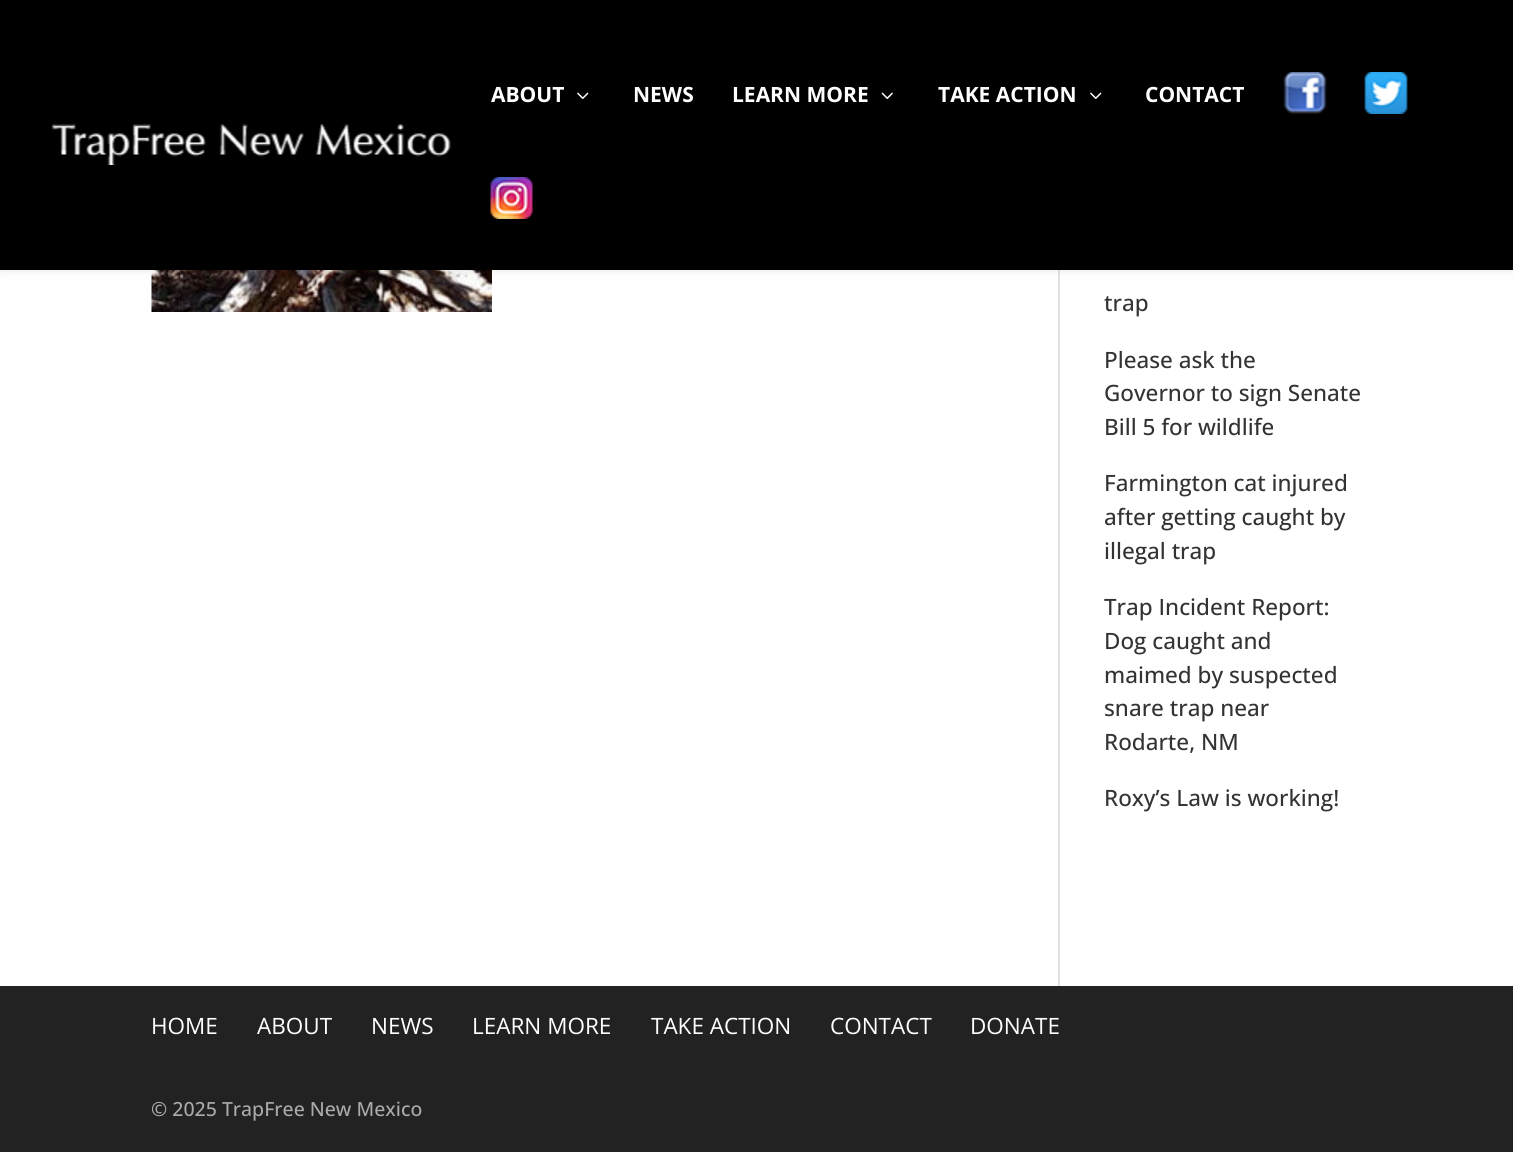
#include <cairo/cairo.h>
#include <math.h>
#include <stddef.h>


static void rounded_rect(cairo_t *cr, double x, double y, double w, double h, double r) {
  cairo_new_sub_path(cr);
  cairo_arc(cr, x + w - r, y + h - r, r, 0, M_PI / 2);
  cairo_arc(cr, x + r, y + h - r, r, M_PI / 2, M_PI);
  cairo_arc(cr, x + r, y + r, r, M_PI, 1.5 * M_PI);
  cairo_arc(cr, x + w - r, y + r, r, 1.5 * M_PI, 2 * M_PI);
  cairo_close_path(cr);
}

static void draw_shadow(cairo_t *cr, double x, double y, double w, double h, double r, double blur, double alpha) {
  cairo_push_group_with_content(cr, CAIRO_CONTENT_ALPHA);
  cairo_set_operator(cr, CAIRO_OPERATOR_SOURCE);
  for (int i = 15; i >= -15 && fmin(w, h) + blur * i / 3 > 0; i -= 2) {
    double e = blur * i / 6;
    cairo_set_source_rgba(cr, 0, 0, 0, alpha * erfc((i - 1) / 8.5) / 2);
    rounded_rect(cr, x - e, y - e, w + 2 * e, h + 2 * e, fmax(0, fmin(r + e + blur * .6, fmin(w, h) / 2 + e)));
    cairo_fill(cr);
  }
  cairo_pattern_t *soft = cairo_pop_group(cr);
  cairo_mask(cr, soft);
  cairo_pattern_destroy(soft);
}

static void draw_image(cairo_t *cr, const char *path, double x, double y, double w, double h) {
  cairo_surface_t *image = cairo_image_surface_create_from_png(path);
  cairo_save(cr);
  cairo_set_source_surface(cr, image, x, y);
  cairo_rectangle(cr, x, y, w, h);
  cairo_fill(cr);
  cairo_restore(cr);
  cairo_surface_destroy(image);
}

static void draw(cairo_t *cr) {
  cairo_set_source_rgb(cr, 34 / 255.0, 34 / 255.0, 34 / 255.0);
  cairo_paint(cr);
  cairo_set_source_rgb(cr, 1, 1, 1);
  cairo_rectangle(cr, 0, 270, 1513, 716);
  cairo_fill(cr);
  cairo_set_source_rgb(cr, 226 / 255.0, 226 / 255.0, 226 / 255.0);
  cairo_rectangle(cr, 1058, 270, 2, 716);
  cairo_fill(cr);
  draw_image(cr, "images/7.png", 151, 270, 341, 42);
  cairo_set_source_rgb(cr, 0, 0, 0);
  draw_shadow(cr, 0, 0, 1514, 270, 0, 5, 0.1);
  cairo_set_source_rgb(cr, 0, 0, 0);
  cairo_rectangle(cr, 0, 0, 1513, 270);
  cairo_fill(cr);
  draw_image(cr, "images/1.png", 577, 92, 12, 7);
  draw_image(cr, "images/2.png", 881, 92, 12, 7);
  draw_image(cr, "images/1.png", 1090, 92, 12, 7);
  draw_image(cr, "images/3.png", 1283, 72, 44, 42);
  draw_image(cr, "images/4.png", 1364, 72, 44, 42);
  draw_image(cr, "images/5.png", 490, 177, 43, 42);
  draw_image(cr, "images/6.png", 51, 124, 400, 41);
  cairo_select_font_face(cr, "Open Sans", CAIRO_FONT_SLANT_NORMAL, CAIRO_FONT_WEIGHT_BOLD);
  cairo_set_font_size(cr, 21);
  cairo_set_source_rgb(cr, 1, 1, 1);
  cairo_move_to(cr, 491, 102);
  cairo_show_text(cr, "ABOUT");
  cairo_move_to(cr, 633, 102);
  cairo_show_text(cr, "NEWS");
  cairo_move_to(cr, 732, 102);
  cairo_show_text(cr, "LEARN MORE");
  cairo_move_to(cr, 938, 102);
  cairo_show_text(cr, "TAKE ACTION");
  cairo_move_to(cr, 1145, 102);
  cairo_show_text(cr, "CONTACT");
  cairo_select_font_face(cr, "Open Sans Medium", CAIRO_FONT_SLANT_NORMAL, CAIRO_FONT_WEIGHT_NORMAL);
  cairo_set_font_size(cr, 22.5);
  cairo_set_source_rgb(cr, 51 / 255.0, 51 / 255.0, 51 / 255.0);
  cairo_move_to(cr, 1104, 311);
  cairo_show_text(cr, "trap");
  cairo_move_to(cr, 1104, 368);
  cairo_show_text(cr, "Please ask the");
  cairo_move_to(cr, 1104, 401);
  cairo_show_text(cr, "Governor to sign Senate");
  cairo_move_to(cr, 1104, 435);
  cairo_show_text(cr, "Bill 5 for wildlife");
  cairo_move_to(cr, 1104, 491);
  cairo_show_text(cr, "Farmington cat injured");
  cairo_move_to(cr, 1104, 525);
  cairo_show_text(cr, "after getting caught by");
  cairo_move_to(cr, 1104, 559);
  cairo_show_text(cr, "illegal trap");
  cairo_move_to(cr, 1104, 615);
  cairo_show_text(cr, "Trap Incident Report:");
  cairo_move_to(cr, 1104, 649);
  cairo_show_text(cr, "Dog caught and");
  cairo_move_to(cr, 1104, 683);
  cairo_show_text(cr, "maimed by suspected");
  cairo_move_to(cr, 1104, 716);
  cairo_show_text(cr, "snare trap near");
  cairo_move_to(cr, 1104, 750);
  cairo_show_text(cr, "Rodarte, NM");
  cairo_move_to(cr, 1104, 806);
  cairo_show_text(cr, "Roxy’s Law is working!");
  cairo_select_font_face(cr, "Open Sans", CAIRO_FONT_SLANT_NORMAL, CAIRO_FONT_WEIGHT_NORMAL);
  cairo_set_source_rgb(cr, 1, 1, 1);
  cairo_move_to(cr, 151, 1034);
  cairo_show_text(cr, "HOME");
  cairo_move_to(cr, 257, 1034);
  cairo_show_text(cr, "ABOUT");
  cairo_move_to(cr, 371, 1034);
  cairo_show_text(cr, "NEWS");
  cairo_move_to(cr, 472, 1034);
  cairo_show_text(cr, "LEARN MORE");
  cairo_move_to(cr, 651, 1034);
  cairo_show_text(cr, "TAKE ACTION");
  cairo_move_to(cr, 830, 1034);
  cairo_show_text(cr, "CONTACT");
  cairo_move_to(cr, 970, 1034);
  cairo_show_text(cr, "DONATE");
  cairo_select_font_face(cr, "Open Sans Medium", CAIRO_FONT_SLANT_NORMAL, CAIRO_FONT_WEIGHT_NORMAL);
  cairo_set_font_size(cr, 19.5);
  cairo_set_source_rgb(cr, 170 / 255.0, 170 / 255.0, 170 / 255.0);
  cairo_move_to(cr, 151, 1116);
  cairo_show_text(cr, "© 2025 TrapFree New Mexico");
}

int main(void) {
  cairo_surface_t *surface = cairo_image_surface_create(CAIRO_FORMAT_RGB24, 1513, 1152);
  cairo_t *cr = cairo_create(surface);
  cairo_font_options_t *options = cairo_font_options_create();
  cairo_font_options_set_hint_metrics(options, CAIRO_HINT_METRICS_OFF);
  cairo_font_options_set_hint_style(options, CAIRO_HINT_STYLE_NONE);
  cairo_set_font_options(cr, options);
  cairo_set_miter_limit(cr, 4);
  draw(cr);
  cairo_surface_write_to_png(surface, "out.png");
  cairo_font_options_destroy(options);
  cairo_destroy(cr);
  cairo_surface_destroy(surface);
  return 0;
}
